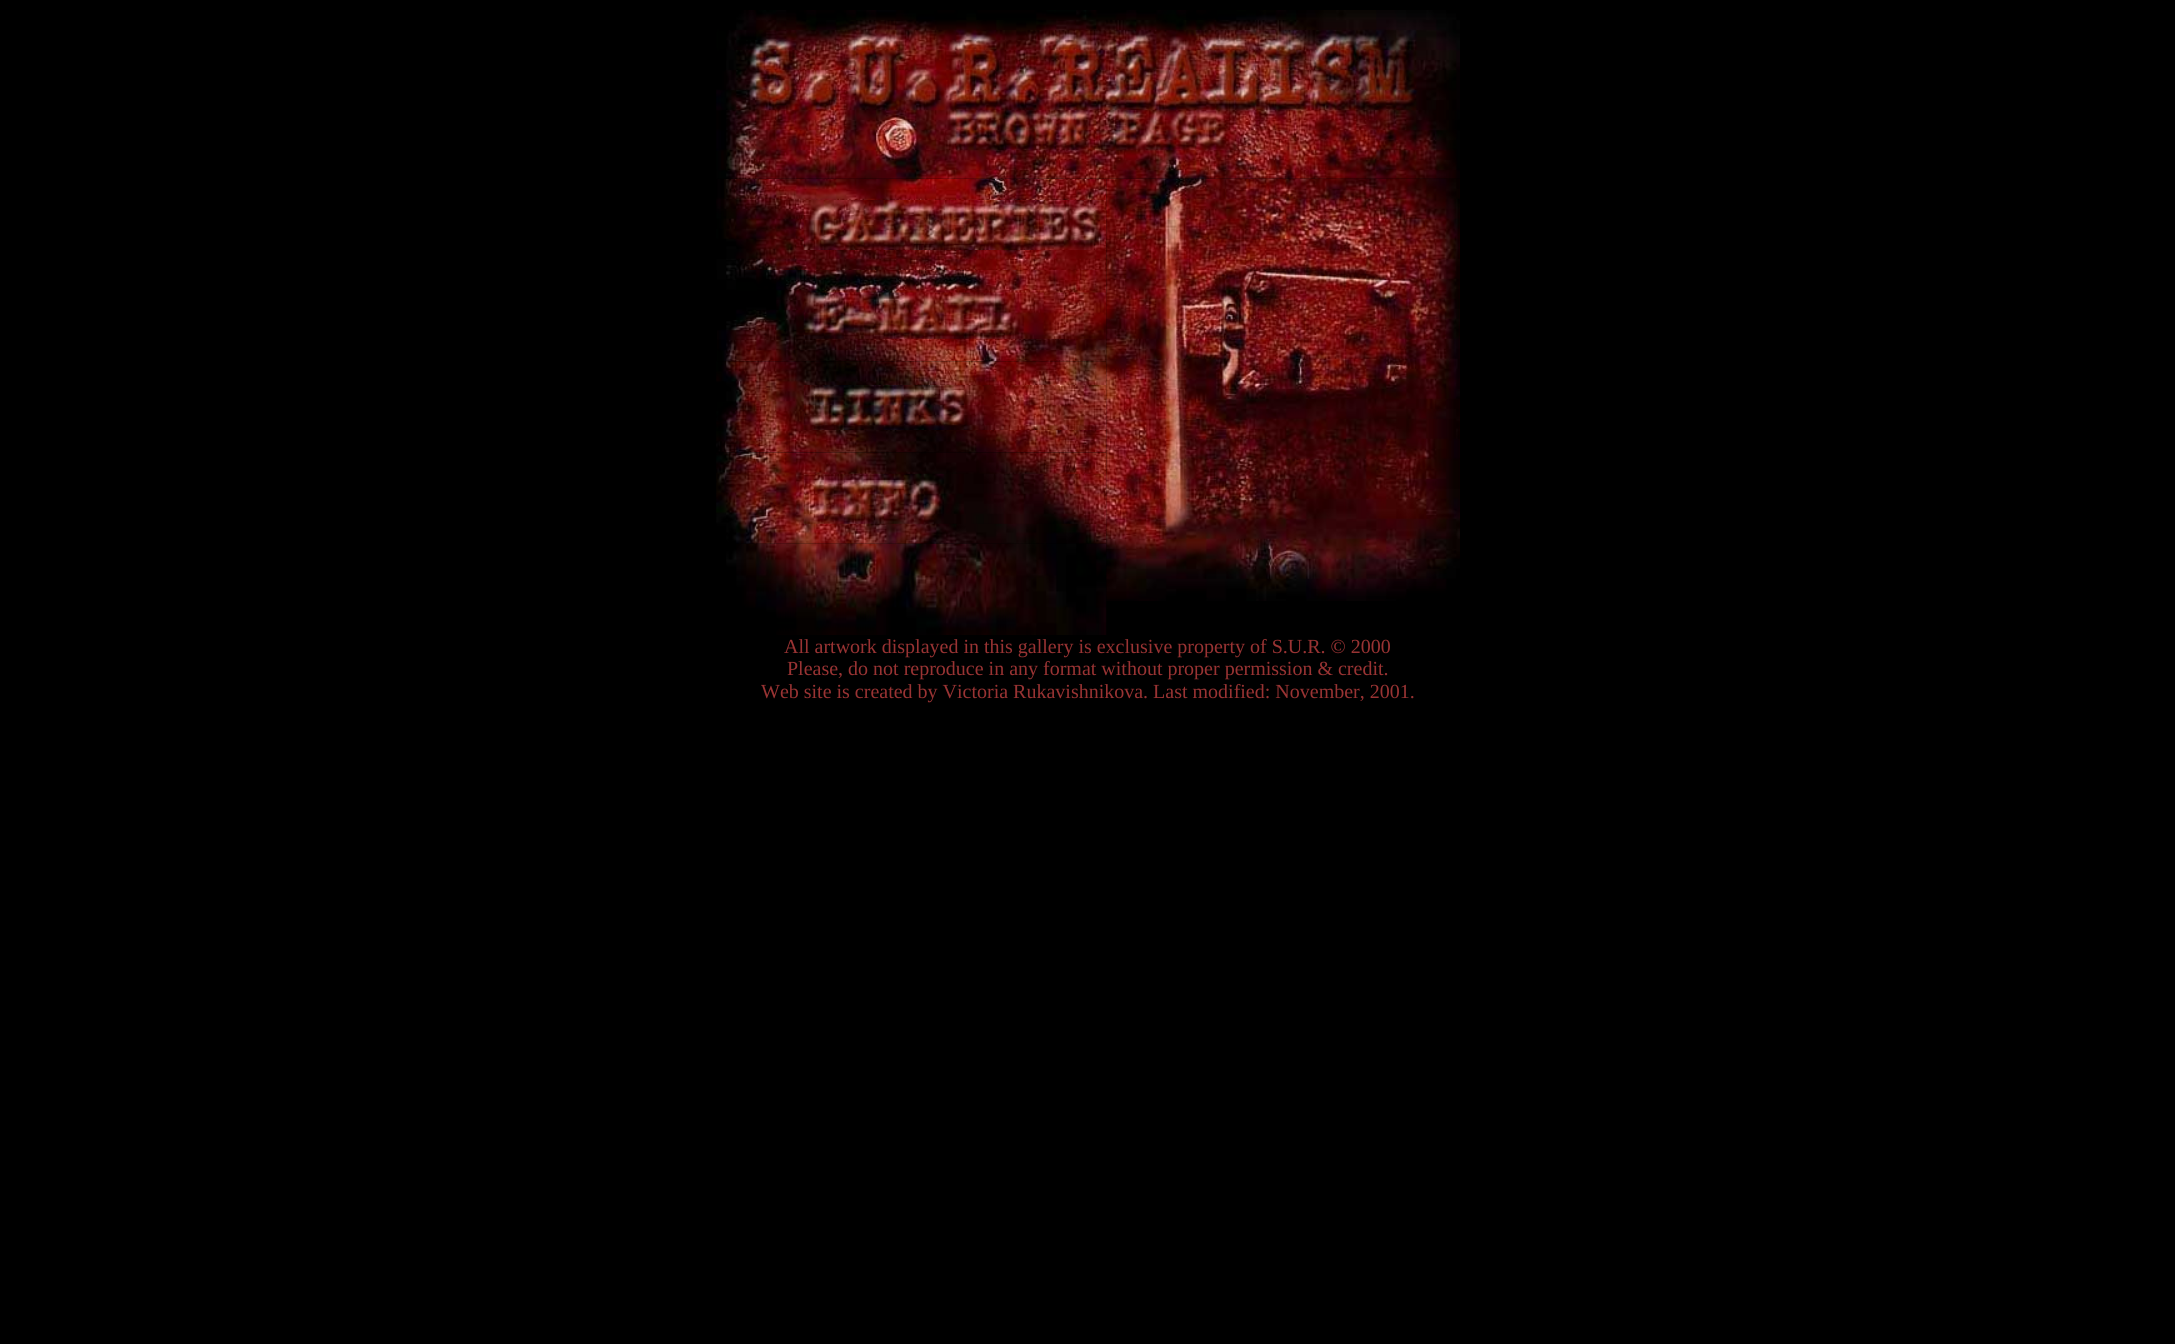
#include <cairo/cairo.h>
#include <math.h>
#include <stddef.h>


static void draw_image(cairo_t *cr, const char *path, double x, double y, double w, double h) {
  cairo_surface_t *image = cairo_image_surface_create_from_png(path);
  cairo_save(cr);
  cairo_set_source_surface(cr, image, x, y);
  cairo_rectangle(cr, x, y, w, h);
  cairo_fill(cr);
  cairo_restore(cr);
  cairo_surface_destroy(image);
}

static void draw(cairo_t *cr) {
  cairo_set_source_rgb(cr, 0, 0, 0);
  cairo_paint(cr);
  draw_image(cr, "images/2.png", 716, 178, 391, 92);
  draw_image(cr, "images/1.png", 716, 10, 744, 169);
  draw_image(cr, "images/3.png", 803, 200, 304, 50);
  draw_image(cr, "images/5.png", 717, 270, 390, 92);
  draw_image(cr, "images/7.png", 716, 361, 391, 92);
  draw_image(cr, "images/9.png", 716, 452, 391, 92);
  draw_image(cr, "images/4.png", 1106, 178, 354, 423);
  draw_image(cr, "images/6.png", 803, 292, 304, 47);
  draw_image(cr, "images/8.png", 803, 385, 304, 45);
  draw_image(cr, "images/10.png", 803, 473, 304, 51);
  draw_image(cr, "images/11.png", 726, 543, 381, 92);
  cairo_select_font_face(cr, "Liberation Serif", CAIRO_FONT_SLANT_NORMAL, CAIRO_FONT_WEIGHT_NORMAL);
  cairo_set_font_size(cr, 20);
  cairo_set_source_rgb(cr, 153 / 255.0, 51 / 255.0, 51 / 255.0);
  cairo_move_to(cr, 784, 653);
  cairo_show_text(cr, "All artwork displayed in this gallery is exclusive property of S.U.R. © 2000");
  cairo_move_to(cr, 787, 675);
  cairo_show_text(cr, "Please, do not reproduce in any format without proper permission & credit.");
  cairo_move_to(cr, 761, 698);
  cairo_show_text(cr, "Web site is created by Victoria Rukavishnikova. Last modified: November, 2001.");
}

int main(void) {
  cairo_surface_t *surface = cairo_image_surface_create(CAIRO_FORMAT_RGB24, 2175, 1344);
  cairo_t *cr = cairo_create(surface);
  cairo_font_options_t *options = cairo_font_options_create();
  cairo_font_options_set_hint_metrics(options, CAIRO_HINT_METRICS_OFF);
  cairo_font_options_set_hint_style(options, CAIRO_HINT_STYLE_NONE);
  cairo_set_font_options(cr, options);
  cairo_set_miter_limit(cr, 4);
  draw(cr);
  cairo_surface_write_to_png(surface, "out.png");
  cairo_font_options_destroy(options);
  cairo_destroy(cr);
  cairo_surface_destroy(surface);
  return 0;
}
